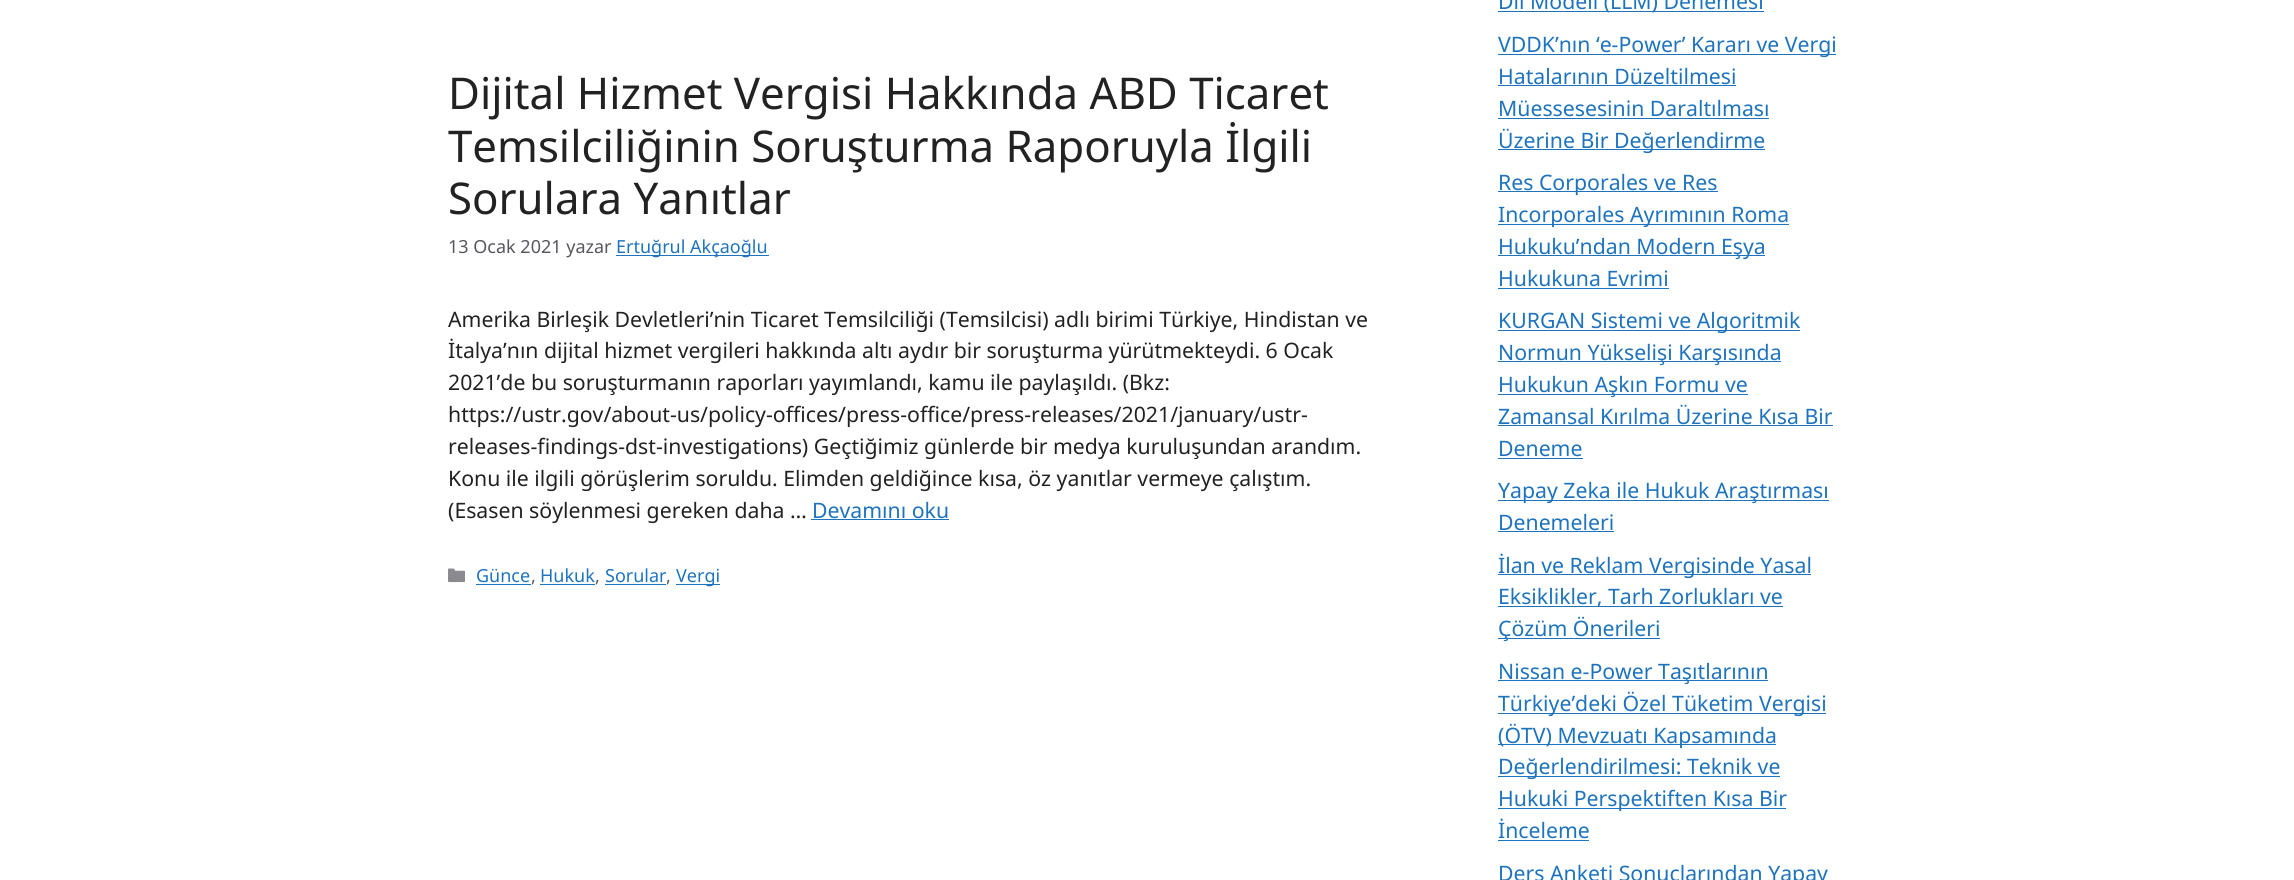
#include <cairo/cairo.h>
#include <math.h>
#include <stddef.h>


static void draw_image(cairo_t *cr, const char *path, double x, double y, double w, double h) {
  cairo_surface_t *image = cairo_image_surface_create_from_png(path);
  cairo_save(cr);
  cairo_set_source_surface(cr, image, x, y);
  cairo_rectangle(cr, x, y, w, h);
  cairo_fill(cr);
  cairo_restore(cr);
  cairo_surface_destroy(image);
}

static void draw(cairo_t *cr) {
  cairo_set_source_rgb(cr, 1, 1, 1);
  cairo_paint(cr);
  cairo_set_source_rgb(cr, 30 / 255.0, 115 / 255.0, 190 / 255.0);
  cairo_rectangle(cr, 616, 255, 153, 1);
  cairo_fill(cr);
  cairo_rectangle(cr, 811, 519, 138, 1);
  cairo_fill(cr);
  draw_image(cr, "images/1.png", 448, 568, 17, 15);
  cairo_rectangle(cr, 476, 584, 55, 1);
  cairo_fill(cr);
  cairo_rectangle(cr, 540, 584, 55, 1);
  cairo_fill(cr);
  cairo_rectangle(cr, 605, 584, 61, 1);
  cairo_fill(cr);
  cairo_rectangle(cr, 676, 584, 44, 1);
  cairo_fill(cr);
  cairo_rectangle(cr, 1498, 11, 266, 1);
  cairo_fill(cr);
  cairo_rectangle(cr, 1498, 54, 338, 1);
  cairo_fill(cr);
  cairo_rectangle(cr, 1498, 85, 238, 1);
  cairo_fill(cr);
  cairo_rectangle(cr, 1498, 118, 271, 1);
  cairo_fill(cr);
  cairo_rectangle(cr, 1498, 149, 267, 1);
  cairo_fill(cr);
  cairo_rectangle(cr, 1498, 191, 220, 1);
  cairo_fill(cr);
  cairo_rectangle(cr, 1498, 224, 291, 1);
  cairo_fill(cr);
  cairo_rectangle(cr, 1498, 255, 267, 1);
  cairo_fill(cr);
  cairo_rectangle(cr, 1498, 288, 171, 1);
  cairo_fill(cr);
  cairo_rectangle(cr, 1498, 330, 302, 1);
  cairo_fill(cr);
  cairo_rectangle(cr, 1498, 361, 283, 1);
  cairo_fill(cr);
  cairo_rectangle(cr, 1498, 394, 250, 1);
  cairo_fill(cr);
  cairo_rectangle(cr, 1498, 425, 335, 1);
  cairo_fill(cr);
  cairo_rectangle(cr, 1498, 458, 85, 1);
  cairo_fill(cr);
  cairo_rectangle(cr, 1498, 500, 331, 1);
  cairo_fill(cr);
  cairo_rectangle(cr, 1498, 531, 116, 1);
  cairo_fill(cr);
  cairo_rectangle(cr, 1498, 574, 313, 1);
  cairo_fill(cr);
  cairo_rectangle(cr, 1498, 606, 285, 1);
  cairo_fill(cr);
  cairo_rectangle(cr, 1498, 638, 162, 1);
  cairo_fill(cr);
  cairo_rectangle(cr, 1498, 680, 270, 1);
  cairo_fill(cr);
  cairo_rectangle(cr, 1498, 713, 328, 1);
  cairo_fill(cr);
  cairo_rectangle(cr, 1498, 744, 278, 1);
  cairo_fill(cr);
  cairo_rectangle(cr, 1498, 776, 282, 1);
  cairo_fill(cr);
  cairo_rectangle(cr, 1498, 808, 288, 1);
  cairo_fill(cr);
  cairo_rectangle(cr, 1498, 840, 91, 1);
  cairo_fill(cr);
  cairo_select_font_face(cr, "Noto Sans", CAIRO_FONT_SLANT_NORMAL, CAIRO_FONT_WEIGHT_NORMAL);
  cairo_set_font_size(cr, 43.75);
  cairo_set_source_rgb(cr, 34 / 255.0, 34 / 255.0, 34 / 255.0);
  cairo_move_to(cr, 448, 109);
  cairo_show_text(cr, "Dijital Hizmet Vergisi Hakkında ABD Ticaret");
  cairo_move_to(cr, 448, 162);
  cairo_show_text(cr, "Temsilciliğinin Soruşturma Raporuyla İlgili");
  cairo_move_to(cr, 448, 214);
  cairo_show_text(cr, "Sorulara Yanıtlar");
  cairo_set_font_size(cr, 18);
  cairo_set_source_rgb(cr, 87 / 255.0, 87 / 255.0, 96 / 255.0);
  cairo_move_to(cr, 448, 253);
  cairo_show_text(cr, "13 Ocak 2021 yazar");
  cairo_set_source_rgb(cr, 30 / 255.0, 115 / 255.0, 190 / 255.0);
  cairo_move_to(cr, 616, 253);
  cairo_show_text(cr, "Ertuğrul Akçaoğlu");
  cairo_set_font_size(cr, 21.25);
  cairo_set_source_rgb(cr, 34 / 255.0, 34 / 255.0, 34 / 255.0);
  cairo_move_to(cr, 448, 327);
  cairo_show_text(cr, "Amerika Birleşik Devletleri’nin Ticaret Temsilciliği (Temsilcisi) adlı birimi Türkiye, Hindistan ve");
  cairo_move_to(cr, 448, 358);
  cairo_show_text(cr, "İtalya’nın dijital hizmet vergileri hakkında altı aydır bir soruşturma yürütmekteydi. 6 Ocak");
  cairo_move_to(cr, 448, 390);
  cairo_show_text(cr, "2021’de bu soruşturmanın raporları yayımlandı, kamu ile paylaşıldı. (Bkz:");
  cairo_move_to(cr, 448, 422);
  cairo_show_text(cr, "https://ustr.gov/about-us/policy-offices/press-office/press-releases/2021/january/ustr-");
  cairo_move_to(cr, 448, 454);
  cairo_show_text(cr, "releases-findings-dst-investigations) Geçtiğimiz günlerde bir medya kuruluşundan arandım.");
  cairo_move_to(cr, 448, 486);
  cairo_show_text(cr, "Konu ile ilgili görüşlerim soruldu. Elimden geldiğince kısa, öz yanıtlar vermeye çalıştım.");
  cairo_move_to(cr, 448, 518);
  cairo_show_text(cr, "(Esasen söylenmesi gereken daha …");
  cairo_set_source_rgb(cr, 30 / 255.0, 115 / 255.0, 190 / 255.0);
  cairo_move_to(cr, 812, 518);
  cairo_show_text(cr, "Devamını oku");
  cairo_set_font_size(cr, 18);
  cairo_move_to(cr, 476, 582);
  cairo_show_text(cr, "Günce");
  cairo_set_source_rgb(cr, 87 / 255.0, 87 / 255.0, 96 / 255.0);
  cairo_move_to(cr, 531, 582);
  cairo_show_text(cr, ",");
  cairo_set_source_rgb(cr, 30 / 255.0, 115 / 255.0, 190 / 255.0);
  cairo_move_to(cr, 540, 582);
  cairo_show_text(cr, "Hukuk");
  cairo_set_source_rgb(cr, 87 / 255.0, 87 / 255.0, 96 / 255.0);
  cairo_move_to(cr, 595, 582);
  cairo_show_text(cr, ",");
  cairo_set_source_rgb(cr, 30 / 255.0, 115 / 255.0, 190 / 255.0);
  cairo_move_to(cr, 605, 582);
  cairo_show_text(cr, "Sorular");
  cairo_set_source_rgb(cr, 87 / 255.0, 87 / 255.0, 96 / 255.0);
  cairo_move_to(cr, 666, 582);
  cairo_show_text(cr, ",");
  cairo_set_source_rgb(cr, 30 / 255.0, 115 / 255.0, 190 / 255.0);
  cairo_move_to(cr, 676, 582);
  cairo_show_text(cr, "Vergi");
  cairo_set_font_size(cr, 21.25);
  cairo_move_to(cr, 1498, 9);
  cairo_show_text(cr, "Dil Modeli (LLM) Denemesi");
  cairo_move_to(cr, 1498, 52);
  cairo_show_text(cr, "VDDK’nın ‘e-Power’ Kararı ve Vergi");
  cairo_move_to(cr, 1498, 84);
  cairo_show_text(cr, "Hatalarının Düzeltilmesi");
  cairo_move_to(cr, 1498, 116);
  cairo_show_text(cr, "Müessesesinin Daraltılması");
  cairo_move_to(cr, 1498, 148);
  cairo_show_text(cr, "Üzerine Bir Değerlendirme");
  cairo_move_to(cr, 1498, 190);
  cairo_show_text(cr, "Res Corporales ve Res");
  cairo_move_to(cr, 1498, 222);
  cairo_show_text(cr, "Incorporales Ayrımının Roma");
  cairo_move_to(cr, 1498, 254);
  cairo_show_text(cr, "Hukuku’ndan Modern Eşya");
  cairo_move_to(cr, 1498, 286);
  cairo_show_text(cr, "Hukukuna Evrimi");
  cairo_move_to(cr, 1498, 328);
  cairo_show_text(cr, "KURGAN Sistemi ve Algoritmik");
  cairo_move_to(cr, 1498, 360);
  cairo_show_text(cr, "Normun Yükselişi Karşısında");
  cairo_move_to(cr, 1498, 392);
  cairo_show_text(cr, "Hukukun Aşkın Formu ve");
  cairo_move_to(cr, 1498, 424);
  cairo_show_text(cr, "Zamansal Kırılma Üzerine Kısa Bir");
  cairo_move_to(cr, 1498, 456);
  cairo_show_text(cr, "Deneme");
  cairo_move_to(cr, 1498, 498);
  cairo_show_text(cr, "Yapay Zeka ile Hukuk Araştırması");
  cairo_move_to(cr, 1498, 530);
  cairo_show_text(cr, "Denemeleri");
  cairo_move_to(cr, 1498, 573);
  cairo_show_text(cr, "İlan ve Reklam Vergisinde Yasal");
  cairo_move_to(cr, 1498, 604);
  cairo_show_text(cr, "Eksiklikler, Tarh Zorlukları ve");
  cairo_move_to(cr, 1498, 636);
  cairo_show_text(cr, "Çözüm Önerileri");
  cairo_move_to(cr, 1498, 679);
  cairo_show_text(cr, "Nissan e-Power Taşıtlarının");
  cairo_move_to(cr, 1498, 711);
  cairo_show_text(cr, "Türkiye’deki Özel Tüketim Vergisi");
  cairo_move_to(cr, 1498, 743);
  cairo_show_text(cr, "(ÖTV) Mevzuatı Kapsamında");
  cairo_move_to(cr, 1498, 774);
  cairo_show_text(cr, "Değerlendirilmesi: Teknik ve");
  cairo_move_to(cr, 1498, 806);
  cairo_show_text(cr, "Hukuki Perspektiften Kısa Bir");
  cairo_move_to(cr, 1498, 838);
  cairo_show_text(cr, "İnceleme");
  cairo_move_to(cr, 1498, 881);
  cairo_show_text(cr, "Ders Anketi Sonuçlarından Yapay");
}

int main(void) {
  cairo_surface_t *surface = cairo_image_surface_create(CAIRO_FORMAT_RGB24, 2294, 880);
  cairo_t *cr = cairo_create(surface);
  cairo_font_options_t *options = cairo_font_options_create();
  cairo_font_options_set_hint_metrics(options, CAIRO_HINT_METRICS_OFF);
  cairo_font_options_set_hint_style(options, CAIRO_HINT_STYLE_NONE);
  cairo_set_font_options(cr, options);
  cairo_set_miter_limit(cr, 4);
  draw(cr);
  cairo_surface_write_to_png(surface, "out.png");
  cairo_font_options_destroy(options);
  cairo_destroy(cr);
  cairo_surface_destroy(surface);
  return 0;
}
